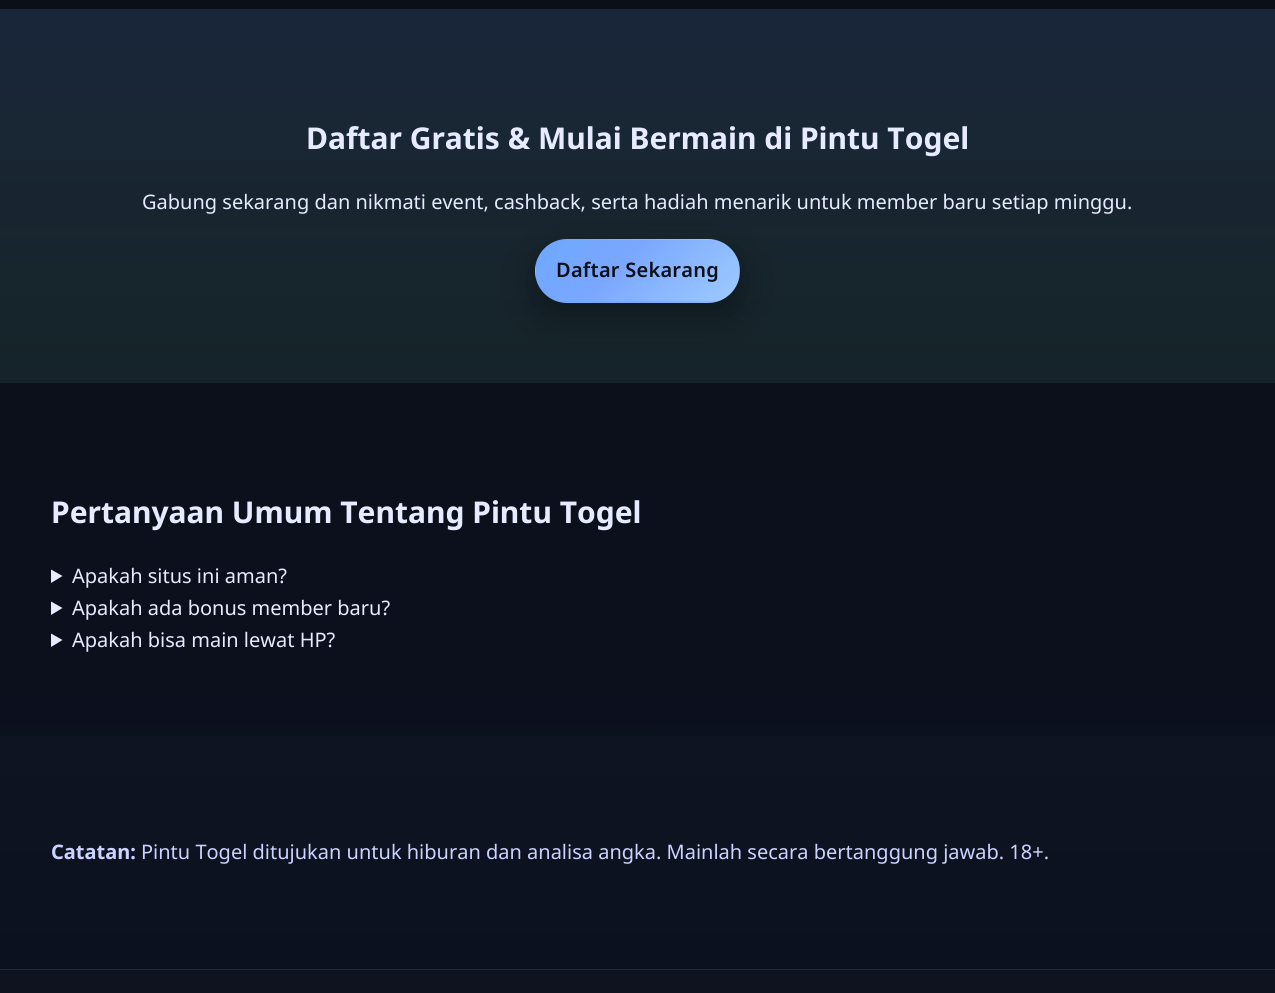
#include <cairo/cairo.h>
#include <math.h>
#include <stddef.h>


static void draw_spaced(cairo_t *cr, double x, double y, const char *s, double letter, double word) {
  cairo_move_to(cr, x, y);
  while (*s) {
    char ch[5] = {0};
    int n = 0;
    do ch[n++] = *s++; while ((*s & 0xC0) == 0x80);
    cairo_show_text(cr, ch);
    cairo_rel_move_to(cr, letter + word * (*ch == ' '), 0);
  }
}

static void rounded_rect(cairo_t *cr, double x, double y, double w, double h, double r) {
  cairo_new_sub_path(cr);
  cairo_arc(cr, x + w - r, y + h - r, r, 0, M_PI / 2);
  cairo_arc(cr, x + r, y + h - r, r, M_PI / 2, M_PI);
  cairo_arc(cr, x + r, y + r, r, M_PI, 1.5 * M_PI);
  cairo_arc(cr, x + w - r, y + r, r, 1.5 * M_PI, 2 * M_PI);
  cairo_close_path(cr);
}

static void draw_shadow(cairo_t *cr, double x, double y, double w, double h, double r, double blur, double alpha) {
  cairo_push_group_with_content(cr, CAIRO_CONTENT_ALPHA);
  cairo_set_operator(cr, CAIRO_OPERATOR_SOURCE);
  for (int i = 15; i >= -15 && fmin(w, h) + blur * i / 3 > 0; i -= 2) {
    double e = blur * i / 6;
    cairo_set_source_rgba(cr, 0, 0, 0, alpha * erfc((i - 1) / 8.5) / 2);
    rounded_rect(cr, x - e, y - e, w + 2 * e, h + 2 * e, fmax(0, fmin(r + e + blur * .6, fmin(w, h) / 2 + e)));
    cairo_fill(cr);
  }
  cairo_pattern_t *soft = cairo_pop_group(cr);
  cairo_mask(cr, soft);
  cairo_pattern_destroy(soft);
}

static void draw(cairo_t *cr) {
  cairo_pattern_t *gradient;
  cairo_set_source_rgb(cr, 1, 1, 1);
  cairo_paint(cr);
  gradient = cairo_pattern_create_linear(637, -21, 638, 973);
  cairo_pattern_add_color_stop_rgba(gradient, 0, 11 / 255.0, 15 / 255.0, 23 / 255.0, 1);
  cairo_pattern_add_color_stop_rgba(gradient, 1, 12 / 255.0, 17 / 255.0, 32 / 255.0, 1);
  cairo_set_source(cr, gradient);
  cairo_pattern_destroy(gradient);
  cairo_rectangle(cr, 0, 0, 1275, 736);
  cairo_fill(cr);
  gradient = cairo_pattern_create_linear(637, -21, 638, 973);
  cairo_pattern_add_color_stop_rgba(gradient, 0, 14 / 255.0, 19 / 255.0, 31 / 255.0, 1);
  cairo_pattern_add_color_stop_rgba(gradient, 1, 14 / 255.0, 19 / 255.0, 33 / 255.0, 1);
  cairo_set_source(cr, gradient);
  cairo_pattern_destroy(gradient);
  cairo_rectangle(cr, 0, 970, 1275, 3);
  cairo_fill(cr);
  gradient = cairo_pattern_create_linear(637, 973, 638, 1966);
  cairo_pattern_add_color_stop_rgba(gradient, 0, 14 / 255.0, 19 / 255.0, 31 / 255.0, 1);
  cairo_pattern_add_color_stop_rgba(gradient, 1, 14 / 255.0, 19 / 255.0, 33 / 255.0, 1);
  cairo_set_source(cr, gradient);
  cairo_pattern_destroy(gradient);
  cairo_rectangle(cr, 0, 973, 1275, 20);
  cairo_fill(cr);
  gradient = cairo_pattern_create_linear(638, 9, 638, 383);
  cairo_pattern_add_color_stop_rgba(gradient, 0, 110 / 255.0, 168 / 255.0, 1, 0.15);
  cairo_pattern_add_color_stop_rgba(gradient, 1, 136 / 255.0, 1, 204 / 255.0, 0.08);
  cairo_set_source(cr, gradient);
  cairo_pattern_destroy(gradient);
  cairo_rectangle(cr, 0, 9, 1275, 374);
  cairo_fill(cr);
  cairo_set_source_rgb(cr, 0, 0, 0);
  draw_shadow(cr, 535, 251, 205, 64, 32, 19, 0.35);
  cairo_save(cr);
  rounded_rect(cr, 535, 239, 205, 64, 32);
  cairo_clip(cr);
  gradient = cairo_pattern_create_linear(572, 143, 703, 275);
  cairo_pattern_add_color_stop_rgba(gradient, 0, 110 / 255.0, 168 / 255.0, 1, 1);
  cairo_pattern_add_color_stop_rgba(gradient, 0.4, 122 / 255.0, 167 / 255.0, 1, 1);
  cairo_pattern_add_color_stop_rgba(gradient, 1, 158 / 255.0, 203 / 255.0, 1, 1);
  cairo_set_source(cr, gradient);
  cairo_pattern_destroy(gradient);
  cairo_rectangle(cr, 559, 239, 157, 1);
  cairo_fill(cr);
  gradient = cairo_pattern_create_linear(369, 205, 501, 337);
  cairo_pattern_add_color_stop_rgba(gradient, 0, 110 / 255.0, 168 / 255.0, 1, 1);
  cairo_pattern_add_color_stop_rgba(gradient, 0.4, 122 / 255.0, 167 / 255.0, 1, 1);
  cairo_pattern_add_color_stop_rgba(gradient, 1, 158 / 255.0, 203 / 255.0, 1, 1);
  cairo_set_source(cr, gradient);
  cairo_pattern_destroy(gradient);
  cairo_rectangle(cr, 535, 263, 1, 16);
  cairo_fill(cr);
  gradient = cairo_pattern_create_linear(572, 205, 703, 337);
  cairo_pattern_add_color_stop_rgba(gradient, 0, 110 / 255.0, 168 / 255.0, 1, 1);
  cairo_pattern_add_color_stop_rgba(gradient, 0.4, 122 / 255.0, 167 / 255.0, 1, 1);
  cairo_pattern_add_color_stop_rgba(gradient, 1, 158 / 255.0, 203 / 255.0, 1, 1);
  cairo_set_source(cr, gradient);
  cairo_pattern_destroy(gradient);
  cairo_rectangle(cr, 536, 240, 203, 61);
  cairo_fill(cr);
  gradient = cairo_pattern_create_linear(774, 205, 906, 337);
  cairo_pattern_add_color_stop_rgba(gradient, 0, 110 / 255.0, 168 / 255.0, 1, 1);
  cairo_pattern_add_color_stop_rgba(gradient, 0.4, 122 / 255.0, 167 / 255.0, 1, 1);
  cairo_pattern_add_color_stop_rgba(gradient, 1, 158 / 255.0, 203 / 255.0, 1, 1);
  cairo_set_source(cr, gradient);
  cairo_pattern_destroy(gradient);
  cairo_rectangle(cr, 739, 263, 1, 16);
  cairo_fill(cr);
  gradient = cairo_pattern_create_linear(572, 266, 703, 398);
  cairo_pattern_add_color_stop_rgba(gradient, 0, 110 / 255.0, 168 / 255.0, 1, 1);
  cairo_pattern_add_color_stop_rgba(gradient, 0.4, 122 / 255.0, 167 / 255.0, 1, 1);
  cairo_pattern_add_color_stop_rgba(gradient, 1, 158 / 255.0, 203 / 255.0, 1, 1);
  cairo_set_source(cr, gradient);
  cairo_pattern_destroy(gradient);
  cairo_rectangle(cr, 556, 301, 163, 2);
  cairo_fill(cr);
  cairo_restore(cr);
  cairo_set_source_rgb(cr, 230 / 255.0, 235 / 255.0, 1);
  cairo_new_path(cr);
  cairo_move_to(cr, 51, 569.5);
  cairo_line_to(cr, 62.5, 576);
  cairo_line_to(cr, 51, 583);
  cairo_close_path(cr);
  cairo_fill(cr);
  cairo_new_path(cr);
  cairo_move_to(cr, 51, 601.5);
  cairo_line_to(cr, 62.5, 608);
  cairo_line_to(cr, 51, 615);
  cairo_close_path(cr);
  cairo_fill(cr);
  cairo_new_path(cr);
  cairo_move_to(cr, 51, 633.5);
  cairo_line_to(cr, 62.5, 640);
  cairo_line_to(cr, 51, 647);
  cairo_close_path(cr);
  cairo_fill(cr);
  gradient = cairo_pattern_create_linear(638, 736, 638, 969);
  cairo_pattern_add_color_stop_rgba(gradient, 0, 15 / 255.0, 20 / 255.0, 34 / 255.0, 1);
  cairo_pattern_add_color_stop_rgba(gradient, 1, 12 / 255.0, 17 / 255.0, 31 / 255.0, 1);
  cairo_set_source(cr, gradient);
  cairo_pattern_destroy(gradient);
  cairo_rectangle(cr, 0, 736, 1275, 233);
  cairo_fill(cr);
  cairo_set_source_rgb(cr, 33 / 255.0, 38 / 255.0, 51 / 255.0);
  cairo_rectangle(cr, 0, 969, 1275, 1);
  cairo_fill(cr);
  cairo_select_font_face(cr, "Noto Sans", CAIRO_FONT_SLANT_NORMAL, CAIRO_FONT_WEIGHT_BOLD);
  cairo_set_font_size(cr, 30);
  cairo_set_source_rgb(cr, 230 / 255.0, 235 / 255.0, 1);
  cairo_move_to(cr, 306, 149);
  cairo_show_text(cr, "Daftar Gratis & Mulai Bermain di Pintu Togel");
  cairo_select_font_face(cr, "Noto Sans", CAIRO_FONT_SLANT_NORMAL, CAIRO_FONT_WEIGHT_NORMAL);
  cairo_set_font_size(cr, 20);
  cairo_move_to(cr, 142, 209);
  cairo_show_text(cr, "Gabung sekarang dan nikmati event, cashback, serta hadiah menarik untuk member baru setiap minggu.");
  cairo_select_font_face(cr, "Noto Sans SemiBold", CAIRO_FONT_SLANT_NORMAL, CAIRO_FONT_WEIGHT_NORMAL);
  cairo_set_source_rgb(cr, 11 / 255.0, 15 / 255.0, 23 / 255.0);
  draw_spaced(cr, 556, 277, "Daftar Sekarang", 0.25, 0);
  cairo_select_font_face(cr, "Noto Sans", CAIRO_FONT_SLANT_NORMAL, CAIRO_FONT_WEIGHT_BOLD);
  cairo_set_font_size(cr, 30);
  cairo_set_source_rgb(cr, 230 / 255.0, 235 / 255.0, 1);
  cairo_move_to(cr, 51, 523);
  cairo_show_text(cr, "Pertanyaan Umum Tentang Pintu Togel");
  cairo_select_font_face(cr, "Noto Sans", CAIRO_FONT_SLANT_NORMAL, CAIRO_FONT_WEIGHT_NORMAL);
  cairo_set_font_size(cr, 20);
  cairo_move_to(cr, 72, 583);
  cairo_show_text(cr, "Apakah situs ini aman?");
  cairo_move_to(cr, 72, 615);
  cairo_show_text(cr, "Apakah ada bonus member baru?");
  cairo_move_to(cr, 72, 647);
  cairo_show_text(cr, "Apakah bisa main lewat HP?");
  cairo_select_font_face(cr, "Noto Sans", CAIRO_FONT_SLANT_NORMAL, CAIRO_FONT_WEIGHT_BOLD);
  cairo_set_source_rgb(cr, 203 / 255.0, 211 / 255.0, 1);
  cairo_move_to(cr, 51, 859);
  cairo_show_text(cr, "Catatan:");
  cairo_select_font_face(cr, "Noto Sans", CAIRO_FONT_SLANT_NORMAL, CAIRO_FONT_WEIGHT_NORMAL);
  cairo_move_to(cr, 141, 859);
  cairo_show_text(cr, "Pintu Togel ditujukan untuk hiburan dan analisa angka. Mainlah secara bertanggung jawab. 18+.");
}

int main(void) {
  cairo_surface_t *surface = cairo_image_surface_create(CAIRO_FORMAT_RGB24, 1275, 993);
  cairo_t *cr = cairo_create(surface);
  cairo_font_options_t *options = cairo_font_options_create();
  cairo_font_options_set_hint_metrics(options, CAIRO_HINT_METRICS_OFF);
  cairo_font_options_set_hint_style(options, CAIRO_HINT_STYLE_NONE);
  cairo_set_font_options(cr, options);
  cairo_set_miter_limit(cr, 4);
  draw(cr);
  cairo_surface_write_to_png(surface, "out.png");
  cairo_font_options_destroy(options);
  cairo_destroy(cr);
  cairo_surface_destroy(surface);
  return 0;
}
